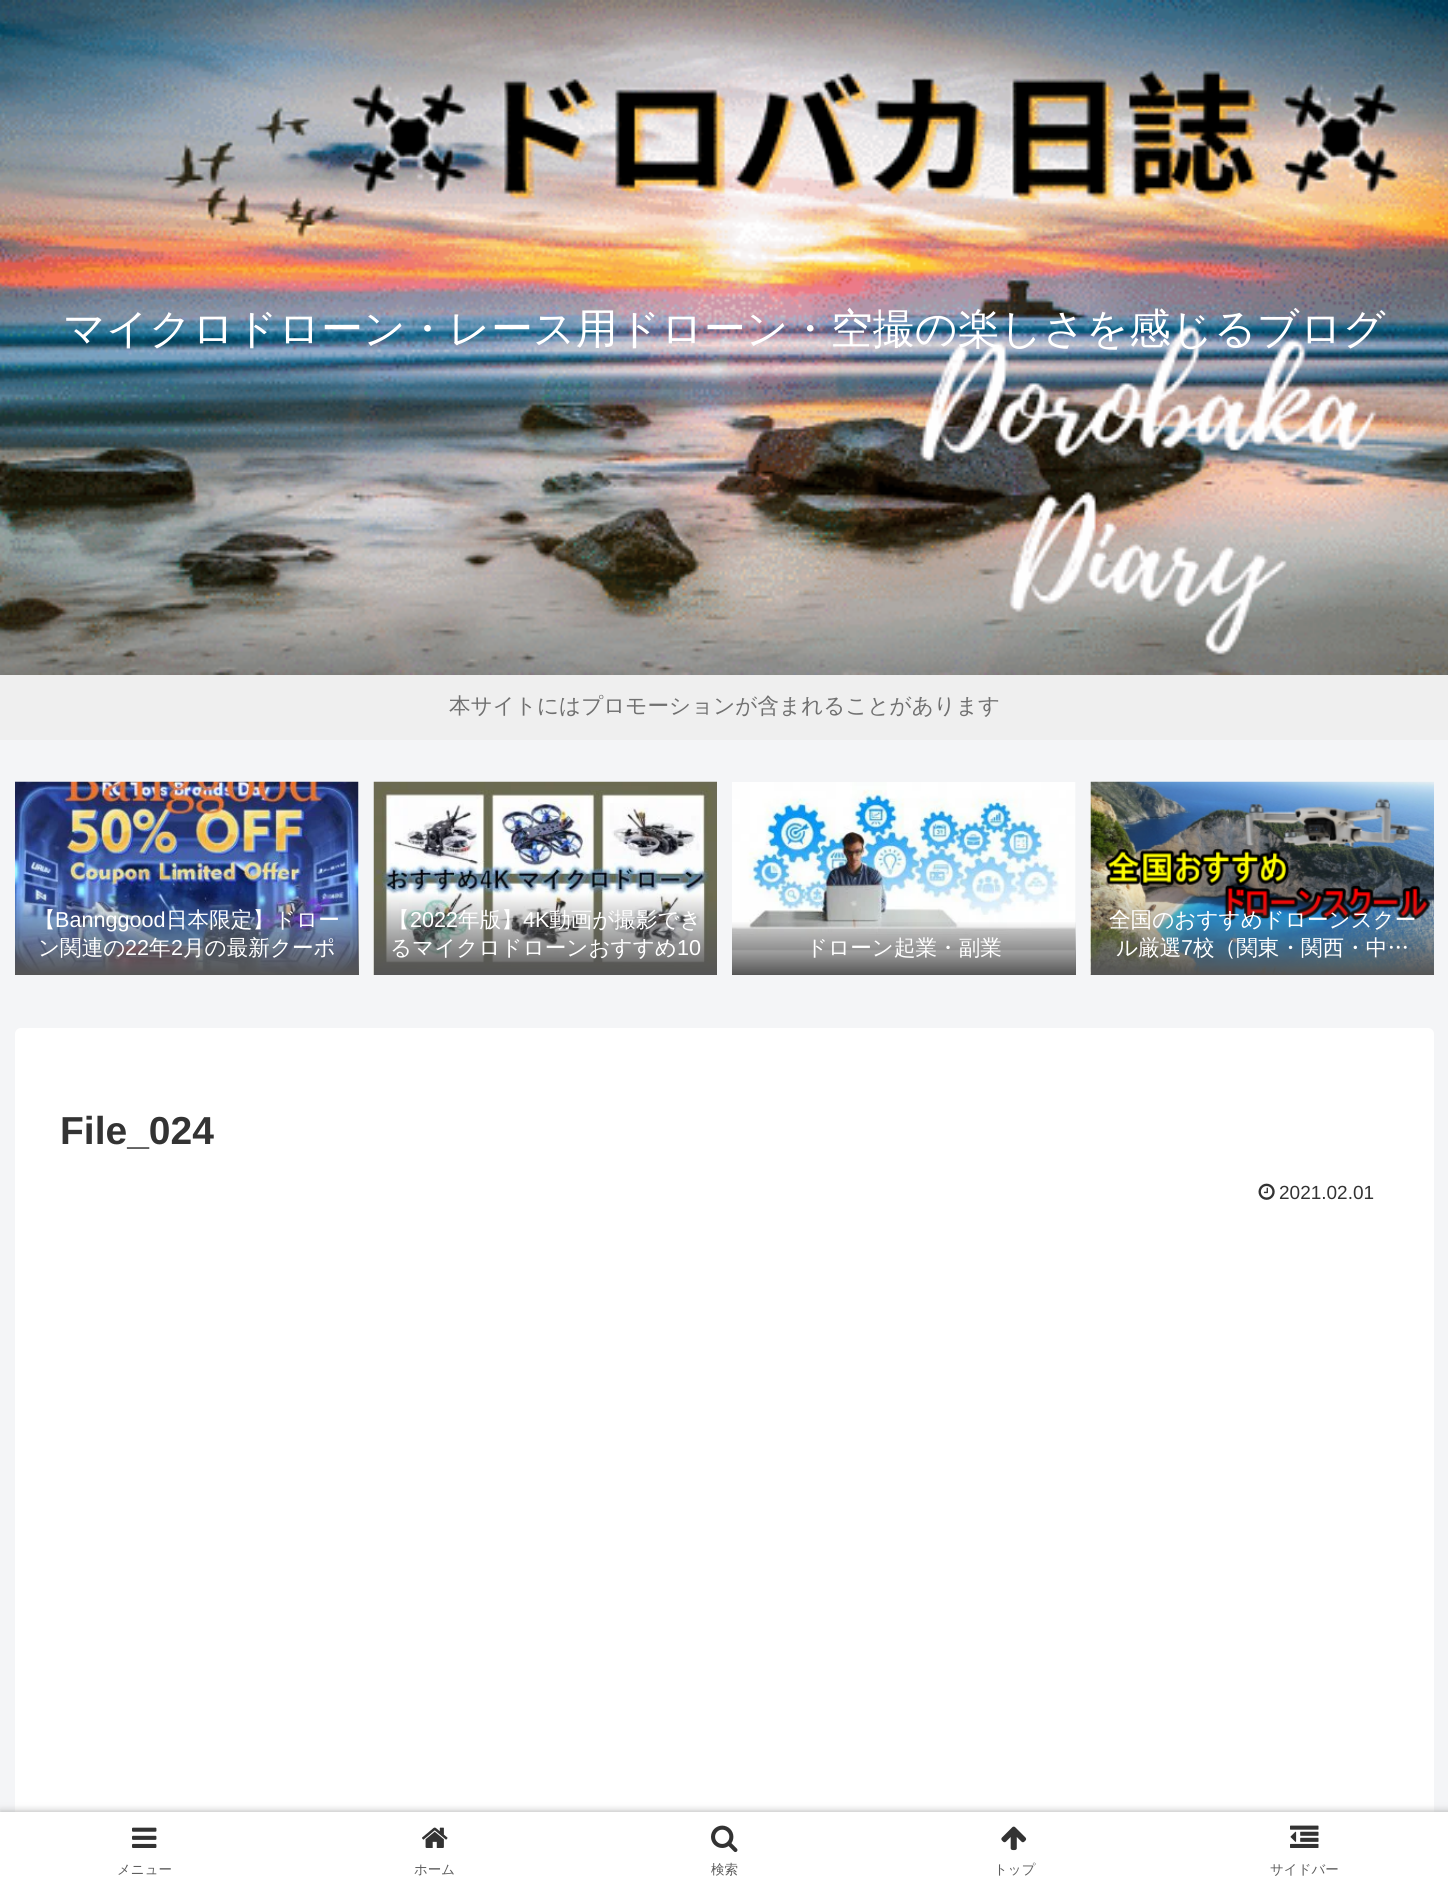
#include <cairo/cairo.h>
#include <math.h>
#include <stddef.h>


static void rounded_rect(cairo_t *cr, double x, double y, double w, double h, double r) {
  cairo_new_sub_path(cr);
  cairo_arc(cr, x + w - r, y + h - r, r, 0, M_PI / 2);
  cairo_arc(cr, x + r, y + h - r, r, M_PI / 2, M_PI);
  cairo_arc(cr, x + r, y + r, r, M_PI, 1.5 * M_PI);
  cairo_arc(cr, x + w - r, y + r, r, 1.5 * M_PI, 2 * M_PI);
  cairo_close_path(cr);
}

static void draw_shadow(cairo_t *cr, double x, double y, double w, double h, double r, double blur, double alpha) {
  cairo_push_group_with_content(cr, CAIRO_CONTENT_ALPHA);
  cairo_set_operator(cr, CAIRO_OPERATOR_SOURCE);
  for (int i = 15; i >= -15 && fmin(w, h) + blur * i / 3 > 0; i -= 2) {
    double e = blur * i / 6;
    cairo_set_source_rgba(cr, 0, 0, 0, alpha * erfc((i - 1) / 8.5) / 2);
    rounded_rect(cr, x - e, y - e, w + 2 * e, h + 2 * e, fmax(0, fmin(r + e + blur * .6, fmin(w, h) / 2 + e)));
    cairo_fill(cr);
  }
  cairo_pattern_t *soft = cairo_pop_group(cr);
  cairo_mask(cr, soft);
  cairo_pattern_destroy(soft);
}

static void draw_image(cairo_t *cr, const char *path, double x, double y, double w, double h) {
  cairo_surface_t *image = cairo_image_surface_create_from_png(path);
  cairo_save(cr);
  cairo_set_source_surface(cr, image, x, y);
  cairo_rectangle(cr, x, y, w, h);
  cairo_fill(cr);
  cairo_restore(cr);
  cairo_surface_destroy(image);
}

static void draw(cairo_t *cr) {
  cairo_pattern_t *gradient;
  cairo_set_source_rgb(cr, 244 / 255.0, 245 / 255.0, 247 / 255.0);
  cairo_paint(cr);
  draw_image(cr, "images/1.png", 0, 0, 1448, 675);
  cairo_set_source_rgb(cr, 239 / 255.0, 239 / 255.0, 239 / 255.0);
  cairo_rectangle(cr, 0, 675, 1448, 65);
  cairo_fill(cr);
  draw_image(cr, "images/2.png", 15, 781, 344, 194);
  gradient = cairo_pattern_create_linear(187, 893, 187, 975);
  cairo_pattern_add_color_stop_rgba(gradient, 0, 85 / 255.0, 85 / 255.0, 85 / 255.0, 0);
  cairo_pattern_add_color_stop_rgba(gradient, 1, 85 / 255.0, 85 / 255.0, 85 / 255.0, 1);
  cairo_set_source(cr, gradient);
  cairo_pattern_destroy(gradient);
  cairo_rectangle(cr, 15, 895, 344, 80);
  cairo_fill(cr);
  draw_image(cr, "images/3.png", 373, 781, 344, 194);
  draw_image(cr, "images/4.png", 732, 782, 344, 193);
  gradient = cairo_pattern_create_linear(904, 921, 904, 975);
  cairo_pattern_add_color_stop_rgba(gradient, 0, 85 / 255.0, 85 / 255.0, 85 / 255.0, 0);
  cairo_pattern_add_color_stop_rgba(gradient, 1, 85 / 255.0, 85 / 255.0, 85 / 255.0, 1);
  cairo_set_source(cr, gradient);
  cairo_pattern_destroy(gradient);
  cairo_rectangle(cr, 732, 922, 344, 53);
  cairo_fill(cr);
  draw_image(cr, "images/5.png", 1090, 781, 344, 194);
  cairo_set_source_rgb(cr, 1, 1, 1);
  rounded_rect(cr, 15, 1028, 1419, 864, 6);
  cairo_fill(cr);
  draw_image(cr, "images/6.png", 1258, 1183, 17, 17);
  cairo_set_source_rgb(cr, 169 / 255.0, 169 / 255.0, 169 / 255.0);
  draw_shadow(cr, 0, 1812, 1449, 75, 0, 4, 1);
  cairo_set_source_rgb(cr, 1, 1, 1);
  cairo_rectangle(cr, 0, 1812, 1448, 74);
  cairo_fill(cr);
  draw_image(cr, "images/7.png", 132, 1827, 25, 21);
  draw_image(cr, "images/8.png", 422, 1827, 26, 21);
  draw_image(cr, "images/9.png", 711, 1825, 27, 28);
  draw_image(cr, "images/10.png", 1001, 1826, 26, 25);
  draw_image(cr, "images/11.png", 1290, 1825, 29, 23);
  cairo_select_font_face(cr, "WenQuanYi Zen Hei Medium", CAIRO_FONT_SLANT_NORMAL, CAIRO_FONT_WEIGHT_NORMAL);
  cairo_set_font_size(cr, 42);
  cairo_move_to(cr, 63, 343);
  cairo_show_text(cr, "マイクロドローン・レース用ドローン・空撮の楽しさを感じるブログ");
  cairo_set_font_size(cr, 21.6);
  cairo_set_source_rgb(cr, 112 / 255.0, 112 / 255.0, 112 / 255.0);
  cairo_move_to(cr, 449, 713);
  cairo_show_text(cr, "本サイトにはプロモーションが含まれることがあります");
  cairo_set_source_rgb(cr, 1, 1, 1);
  cairo_move_to(cr, 34, 927);
  cairo_show_text(cr, "【");
  cairo_select_font_face(cr, "Liberation Sans", CAIRO_FONT_SLANT_NORMAL, CAIRO_FONT_WEIGHT_NORMAL);
  cairo_move_to(cr, 55, 927);
  cairo_show_text(cr, "Bannggood");
  cairo_select_font_face(cr, "WenQuanYi Zen Hei Medium", CAIRO_FONT_SLANT_NORMAL, CAIRO_FONT_WEIGHT_NORMAL);
  cairo_move_to(cr, 166, 927);
  cairo_show_text(cr, "日本限定】ドロー");
  cairo_move_to(cr, 38, 955);
  cairo_show_text(cr, "ン関連の");
  cairo_select_font_face(cr, "Liberation Sans", CAIRO_FONT_SLANT_NORMAL, CAIRO_FONT_WEIGHT_NORMAL);
  cairo_move_to(cr, 125, 955);
  cairo_show_text(cr, "22");
  cairo_select_font_face(cr, "WenQuanYi Zen Hei Medium", CAIRO_FONT_SLANT_NORMAL, CAIRO_FONT_WEIGHT_NORMAL);
  cairo_move_to(cr, 149, 955);
  cairo_show_text(cr, "年");
  cairo_select_font_face(cr, "Liberation Sans", CAIRO_FONT_SLANT_NORMAL, CAIRO_FONT_WEIGHT_NORMAL);
  cairo_move_to(cr, 171, 955);
  cairo_show_text(cr, "2");
  cairo_select_font_face(cr, "WenQuanYi Zen Hei Medium", CAIRO_FONT_SLANT_NORMAL, CAIRO_FONT_WEIGHT_NORMAL);
  cairo_move_to(cr, 183, 955);
  cairo_show_text(cr, "月の最新クーポ");
  cairo_move_to(cr, 388, 927);
  cairo_show_text(cr, "【");
  cairo_select_font_face(cr, "Liberation Sans", CAIRO_FONT_SLANT_NORMAL, CAIRO_FONT_WEIGHT_NORMAL);
  cairo_move_to(cr, 410, 927);
  cairo_show_text(cr, "2022");
  cairo_select_font_face(cr, "WenQuanYi Zen Hei Medium", CAIRO_FONT_SLANT_NORMAL, CAIRO_FONT_WEIGHT_NORMAL);
  cairo_move_to(cr, 458, 927);
  cairo_show_text(cr, "年版】");
  cairo_select_font_face(cr, "Liberation Sans", CAIRO_FONT_SLANT_NORMAL, CAIRO_FONT_WEIGHT_NORMAL);
  cairo_move_to(cr, 523, 927);
  cairo_show_text(cr, "4K");
  cairo_select_font_face(cr, "WenQuanYi Zen Hei Medium", CAIRO_FONT_SLANT_NORMAL, CAIRO_FONT_WEIGHT_NORMAL);
  cairo_move_to(cr, 549, 927);
  cairo_show_text(cr, "動画が撮影でき");
  cairo_move_to(cr, 390, 955);
  cairo_show_text(cr, "るマイクロドローンおすすめ");
  cairo_select_font_face(cr, "Liberation Sans", CAIRO_FONT_SLANT_NORMAL, CAIRO_FONT_WEIGHT_NORMAL);
  cairo_move_to(cr, 677, 955);
  cairo_show_text(cr, "10");
  cairo_select_font_face(cr, "WenQuanYi Zen Hei Medium", CAIRO_FONT_SLANT_NORMAL, CAIRO_FONT_WEIGHT_NORMAL);
  cairo_move_to(cr, 806, 955);
  cairo_show_text(cr, "ドローン起業・副業");
  cairo_move_to(cr, 1109, 927);
  cairo_show_text(cr, "全国のおすすめドローンスクー");
  cairo_move_to(cr, 1116, 955);
  cairo_show_text(cr, "ル厳選");
  cairo_select_font_face(cr, "Liberation Sans", CAIRO_FONT_SLANT_NORMAL, CAIRO_FONT_WEIGHT_NORMAL);
  cairo_move_to(cr, 1181, 955);
  cairo_show_text(cr, "7");
  cairo_select_font_face(cr, "WenQuanYi Zen Hei Medium", CAIRO_FONT_SLANT_NORMAL, CAIRO_FONT_WEIGHT_NORMAL);
  cairo_move_to(cr, 1193, 955);
  cairo_show_text(cr, "校（関東・関西・中…");
  cairo_select_font_face(cr, "Liberation Sans", CAIRO_FONT_SLANT_NORMAL, CAIRO_FONT_WEIGHT_BOLD);
  cairo_set_font_size(cr, 39);
  cairo_set_source_rgb(cr, 51 / 255.0, 51 / 255.0, 51 / 255.0);
  cairo_move_to(cr, 60, 1144);
  cairo_show_text(cr, "File_024");
  cairo_select_font_face(cr, "Liberation Sans", CAIRO_FONT_SLANT_NORMAL, CAIRO_FONT_WEIGHT_NORMAL);
  cairo_set_font_size(cr, 19);
  cairo_move_to(cr, 1279, 1199);
  cairo_show_text(cr, "2021.02.01");
  cairo_select_font_face(cr, "WenQuanYi Zen Hei Medium", CAIRO_FONT_SLANT_NORMAL, CAIRO_FONT_WEIGHT_NORMAL);
  cairo_set_font_size(cr, 13.5);
  cairo_set_source_rgb(cr, 92 / 255.0, 92 / 255.0, 92 / 255.0);
  cairo_move_to(cr, 117, 1874);
  cairo_show_text(cr, "メニュー");
  cairo_move_to(cr, 414, 1874);
  cairo_show_text(cr, "ホーム");
  cairo_move_to(cr, 711, 1874);
  cairo_show_text(cr, "検索");
  cairo_move_to(cr, 994, 1874);
  cairo_show_text(cr, "トップ");
  cairo_move_to(cr, 1270, 1874);
  cairo_show_text(cr, "サイドバー");
}

int main(void) {
  cairo_surface_t *surface = cairo_image_surface_create(CAIRO_FORMAT_RGB24, 1448, 1886);
  cairo_t *cr = cairo_create(surface);
  cairo_font_options_t *options = cairo_font_options_create();
  cairo_font_options_set_hint_metrics(options, CAIRO_HINT_METRICS_OFF);
  cairo_font_options_set_hint_style(options, CAIRO_HINT_STYLE_NONE);
  cairo_set_font_options(cr, options);
  cairo_set_miter_limit(cr, 4);
  draw(cr);
  cairo_surface_write_to_png(surface, "out.png");
  cairo_font_options_destroy(options);
  cairo_destroy(cr);
  cairo_surface_destroy(surface);
  return 0;
}
